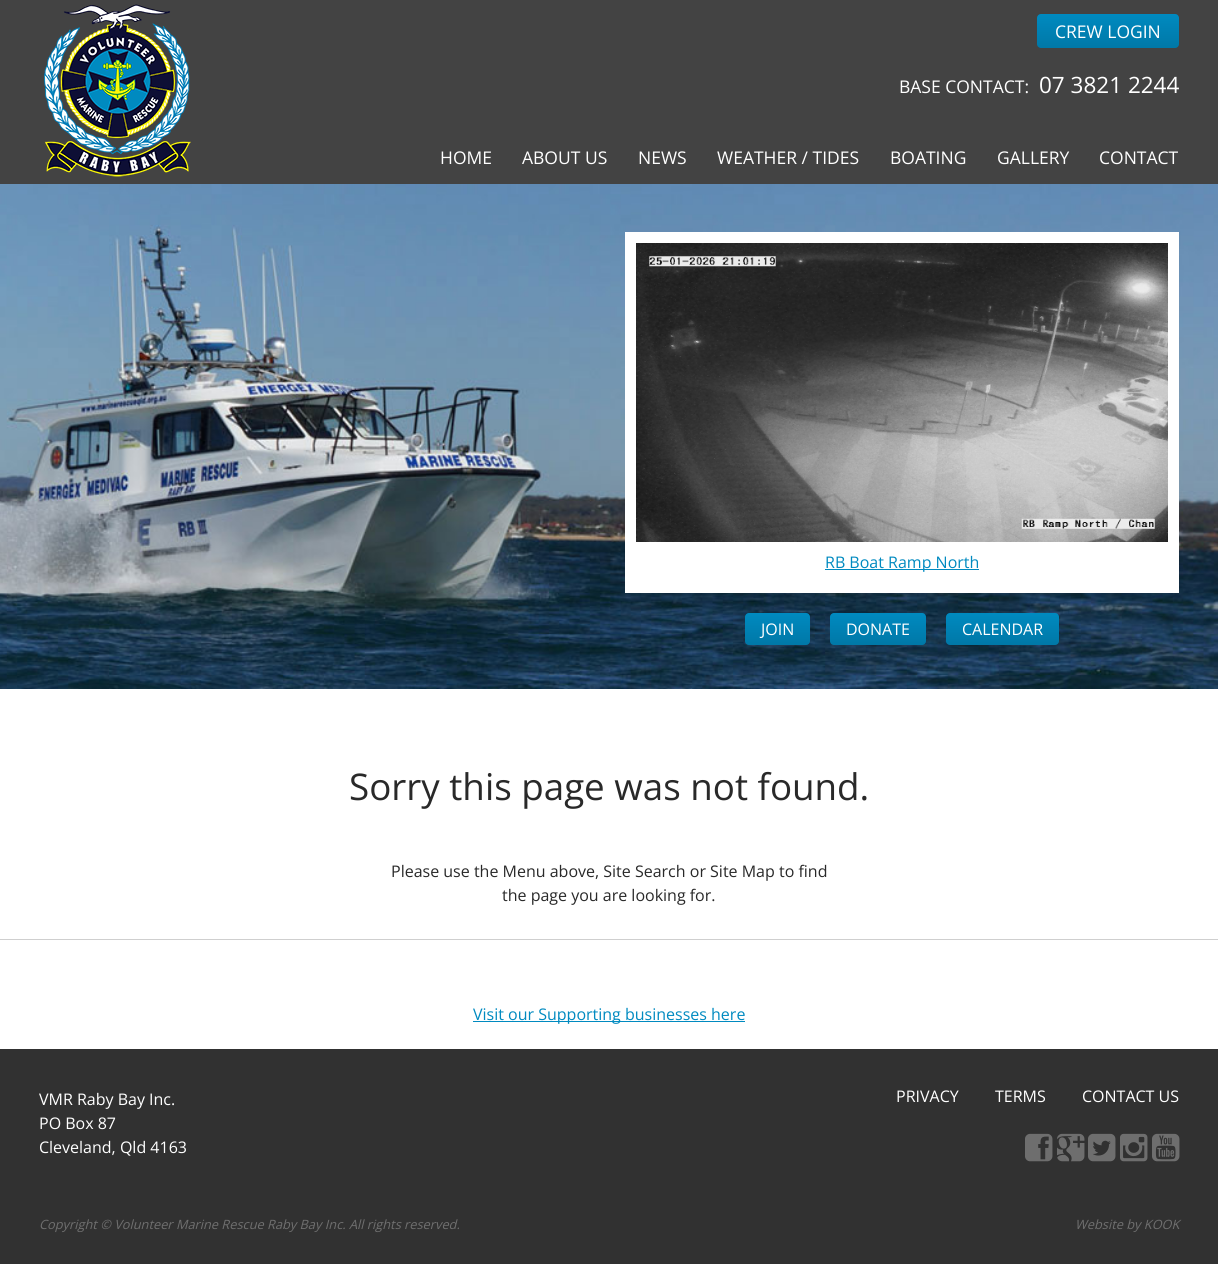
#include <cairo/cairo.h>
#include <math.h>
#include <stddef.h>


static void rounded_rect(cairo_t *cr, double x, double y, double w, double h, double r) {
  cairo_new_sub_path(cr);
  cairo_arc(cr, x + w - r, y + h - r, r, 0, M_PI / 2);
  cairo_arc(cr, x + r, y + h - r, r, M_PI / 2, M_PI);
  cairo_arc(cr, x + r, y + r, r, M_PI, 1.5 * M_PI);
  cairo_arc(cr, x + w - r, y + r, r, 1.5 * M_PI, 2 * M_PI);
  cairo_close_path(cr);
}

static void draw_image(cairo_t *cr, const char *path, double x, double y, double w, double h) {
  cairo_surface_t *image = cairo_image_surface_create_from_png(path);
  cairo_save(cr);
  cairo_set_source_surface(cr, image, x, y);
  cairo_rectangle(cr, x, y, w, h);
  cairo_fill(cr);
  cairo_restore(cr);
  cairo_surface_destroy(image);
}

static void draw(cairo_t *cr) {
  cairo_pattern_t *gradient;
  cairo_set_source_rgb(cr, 1, 1, 1);
  cairo_paint(cr);
  cairo_set_source_rgb(cr, 67 / 255.0, 67 / 255.0, 67 / 255.0);
  cairo_rectangle(cr, 0, 0, 1218, 184);
  cairo_fill(cr);
  draw_image(cr, "images/1.png", 44, 4, 147, 173);
  gradient = cairo_pattern_create_linear(1108, 14, 1108, 48);
  cairo_pattern_add_color_stop_rgba(gradient, 0, 0, 138 / 255.0, 192 / 255.0, 1);
  cairo_pattern_add_color_stop_rgba(gradient, 1, 0, 120 / 255.0, 167 / 255.0, 1);
  cairo_set_source(cr, gradient);
  cairo_pattern_destroy(gradient);
  rounded_rect(cr, 1037, 14, 142, 34, 4);
  cairo_fill(cr);
  draw_image(cr, "images/2.png", 0, 184, 1218, 505);
  cairo_set_source_rgb(cr, 1, 1, 1);
  cairo_rectangle(cr, 625, 232, 554, 361);
  cairo_fill(cr);
  draw_image(cr, "images/3.png", 636, 243, 532, 299);
  cairo_set_source_rgb(cr, 0, 138 / 255.0, 192 / 255.0);
  cairo_rectangle(cr, 825, 569, 154, 1);
  cairo_fill(cr);
  gradient = cairo_pattern_create_linear(778, 613, 778, 645);
  cairo_pattern_add_color_stop_rgba(gradient, 0, 0, 138 / 255.0, 192 / 255.0, 1);
  cairo_pattern_add_color_stop_rgba(gradient, 1, 0, 120 / 255.0, 167 / 255.0, 1);
  cairo_set_source(cr, gradient);
  cairo_pattern_destroy(gradient);
  rounded_rect(cr, 745, 613, 65, 32, 4);
  cairo_fill(cr);
  gradient = cairo_pattern_create_linear(878, 613, 878, 645);
  cairo_pattern_add_color_stop_rgba(gradient, 0, 0, 138 / 255.0, 192 / 255.0, 1);
  cairo_pattern_add_color_stop_rgba(gradient, 1, 0, 120 / 255.0, 167 / 255.0, 1);
  cairo_set_source(cr, gradient);
  cairo_pattern_destroy(gradient);
  rounded_rect(cr, 830, 613, 96, 32, 4);
  cairo_fill(cr);
  gradient = cairo_pattern_create_linear(1003, 613, 1003, 645);
  cairo_pattern_add_color_stop_rgba(gradient, 0, 0, 138 / 255.0, 192 / 255.0, 1);
  cairo_pattern_add_color_stop_rgba(gradient, 1, 0, 120 / 255.0, 167 / 255.0, 1);
  cairo_set_source(cr, gradient);
  cairo_pattern_destroy(gradient);
  rounded_rect(cr, 946, 613, 113, 32, 4);
  cairo_fill(cr);
  cairo_set_source_rgb(cr, 207 / 255.0, 207 / 255.0, 207 / 255.0);
  cairo_rectangle(cr, 0, 939, 1218, 1);
  cairo_fill(cr);
  cairo_set_source_rgb(cr, 0, 138 / 255.0, 192 / 255.0);
  cairo_rectangle(cr, 473, 1021, 272, 1);
  cairo_fill(cr);
  cairo_set_source_rgb(cr, 49 / 255.0, 49 / 255.0, 49 / 255.0);
  cairo_rectangle(cr, 0, 1049, 1218, 215);
  cairo_fill(cr);
  draw_image(cr, "images/4.png", 1025, 1133, 28, 29);
  draw_image(cr, "images/5.png", 1057, 1133, 28, 29);
  draw_image(cr, "images/6.png", 1088, 1133, 28, 29);
  draw_image(cr, "images/7.png", 1120, 1133, 28, 29);
  draw_image(cr, "images/8.png", 1152, 1133, 28, 29);
  cairo_select_font_face(cr, "Open Sans", CAIRO_FONT_SLANT_NORMAL, CAIRO_FONT_WEIGHT_NORMAL);
  cairo_set_font_size(cr, 17.5);
  cairo_set_source_rgb(cr, 1, 1, 1);
  cairo_move_to(cr, 1055, 38);
  cairo_show_text(cr, "CREW LOGIN");
  cairo_move_to(cr, 899, 93);
  cairo_show_text(cr, "BASE CONTACT:");
  cairo_set_font_size(cr, 22.5);
  cairo_move_to(cr, 1039, 93);
  cairo_show_text(cr, "07 3821 2244");
  cairo_set_font_size(cr, 17.5);
  cairo_move_to(cr, 440, 164);
  cairo_show_text(cr, "HOME");
  cairo_move_to(cr, 522, 164);
  cairo_show_text(cr, "ABOUT US");
  cairo_move_to(cr, 638, 164);
  cairo_show_text(cr, "NEWS");
  cairo_move_to(cr, 717, 164);
  cairo_show_text(cr, "WEATHER / TIDES");
  cairo_move_to(cr, 890, 164);
  cairo_show_text(cr, "BOATING");
  cairo_move_to(cr, 997, 164);
  cairo_show_text(cr, "GALLERY");
  cairo_move_to(cr, 1099, 164);
  cairo_show_text(cr, "CONTACT");
  cairo_set_font_size(cr, 16);
  cairo_set_source_rgb(cr, 0, 138 / 255.0, 192 / 255.0);
  cairo_move_to(cr, 825, 568);
  cairo_show_text(cr, "RB Boat Ramp North");
  cairo_set_source_rgb(cr, 1, 1, 1);
  cairo_move_to(cr, 761, 635);
  cairo_show_text(cr, "JOIN");
  cairo_move_to(cr, 846, 635);
  cairo_show_text(cr, "DONATE");
  cairo_move_to(cr, 962, 635);
  cairo_show_text(cr, "CALENDAR");
  cairo_set_font_size(cr, 36.75);
  cairo_set_source_rgb(cr, 41 / 255.0, 41 / 255.0, 41 / 255.0);
  cairo_move_to(cr, 349, 800);
  cairo_show_text(cr, "Sorry this page was not found.");
  cairo_set_font_size(cr, 16);
  cairo_move_to(cr, 391, 877);
  cairo_show_text(cr, "Please use the Menu above, Site Search or Site Map to find");
  cairo_move_to(cr, 502, 901);
  cairo_show_text(cr, "the page you are looking for.");
  cairo_set_source_rgb(cr, 0, 138 / 255.0, 192 / 255.0);
  cairo_move_to(cr, 473, 1020);
  cairo_show_text(cr, "Visit our Supporting businesses here");
  cairo_set_source_rgb(cr, 1, 1, 1);
  cairo_move_to(cr, 39, 1105);
  cairo_show_text(cr, "VMR Raby Bay Inc.");
  cairo_move_to(cr, 39, 1129);
  cairo_show_text(cr, "PO Box 87");
  cairo_move_to(cr, 39, 1153);
  cairo_show_text(cr, "Cleveland, Qld 4163");
  cairo_move_to(cr, 896, 1102);
  cairo_show_text(cr, "PRIVACY");
  cairo_move_to(cr, 995, 1102);
  cairo_show_text(cr, "TERMS");
  cairo_move_to(cr, 1082, 1102);
  cairo_show_text(cr, "CONTACT US");
  cairo_select_font_face(cr, "Open Sans", CAIRO_FONT_SLANT_ITALIC, CAIRO_FONT_WEIGHT_NORMAL);
  cairo_set_font_size(cr, 12.8);
  cairo_set_source_rgb(cr, 111 / 255.0, 111 / 255.0, 111 / 255.0);
  cairo_move_to(cr, 39, 1229);
  cairo_show_text(cr, "Copyright © Volunteer Marine Rescue Raby Bay Inc. All rights reserved.");
  cairo_move_to(cr, 1075, 1229);
  cairo_show_text(cr, "Website by KOOK");
}

int main(void) {
  cairo_surface_t *surface = cairo_image_surface_create(CAIRO_FORMAT_RGB24, 1218, 1264);
  cairo_t *cr = cairo_create(surface);
  cairo_font_options_t *options = cairo_font_options_create();
  cairo_font_options_set_hint_metrics(options, CAIRO_HINT_METRICS_OFF);
  cairo_font_options_set_hint_style(options, CAIRO_HINT_STYLE_NONE);
  cairo_set_font_options(cr, options);
  cairo_set_miter_limit(cr, 4);
  draw(cr);
  cairo_surface_write_to_png(surface, "out.png");
  cairo_font_options_destroy(options);
  cairo_destroy(cr);
  cairo_surface_destroy(surface);
  return 0;
}
